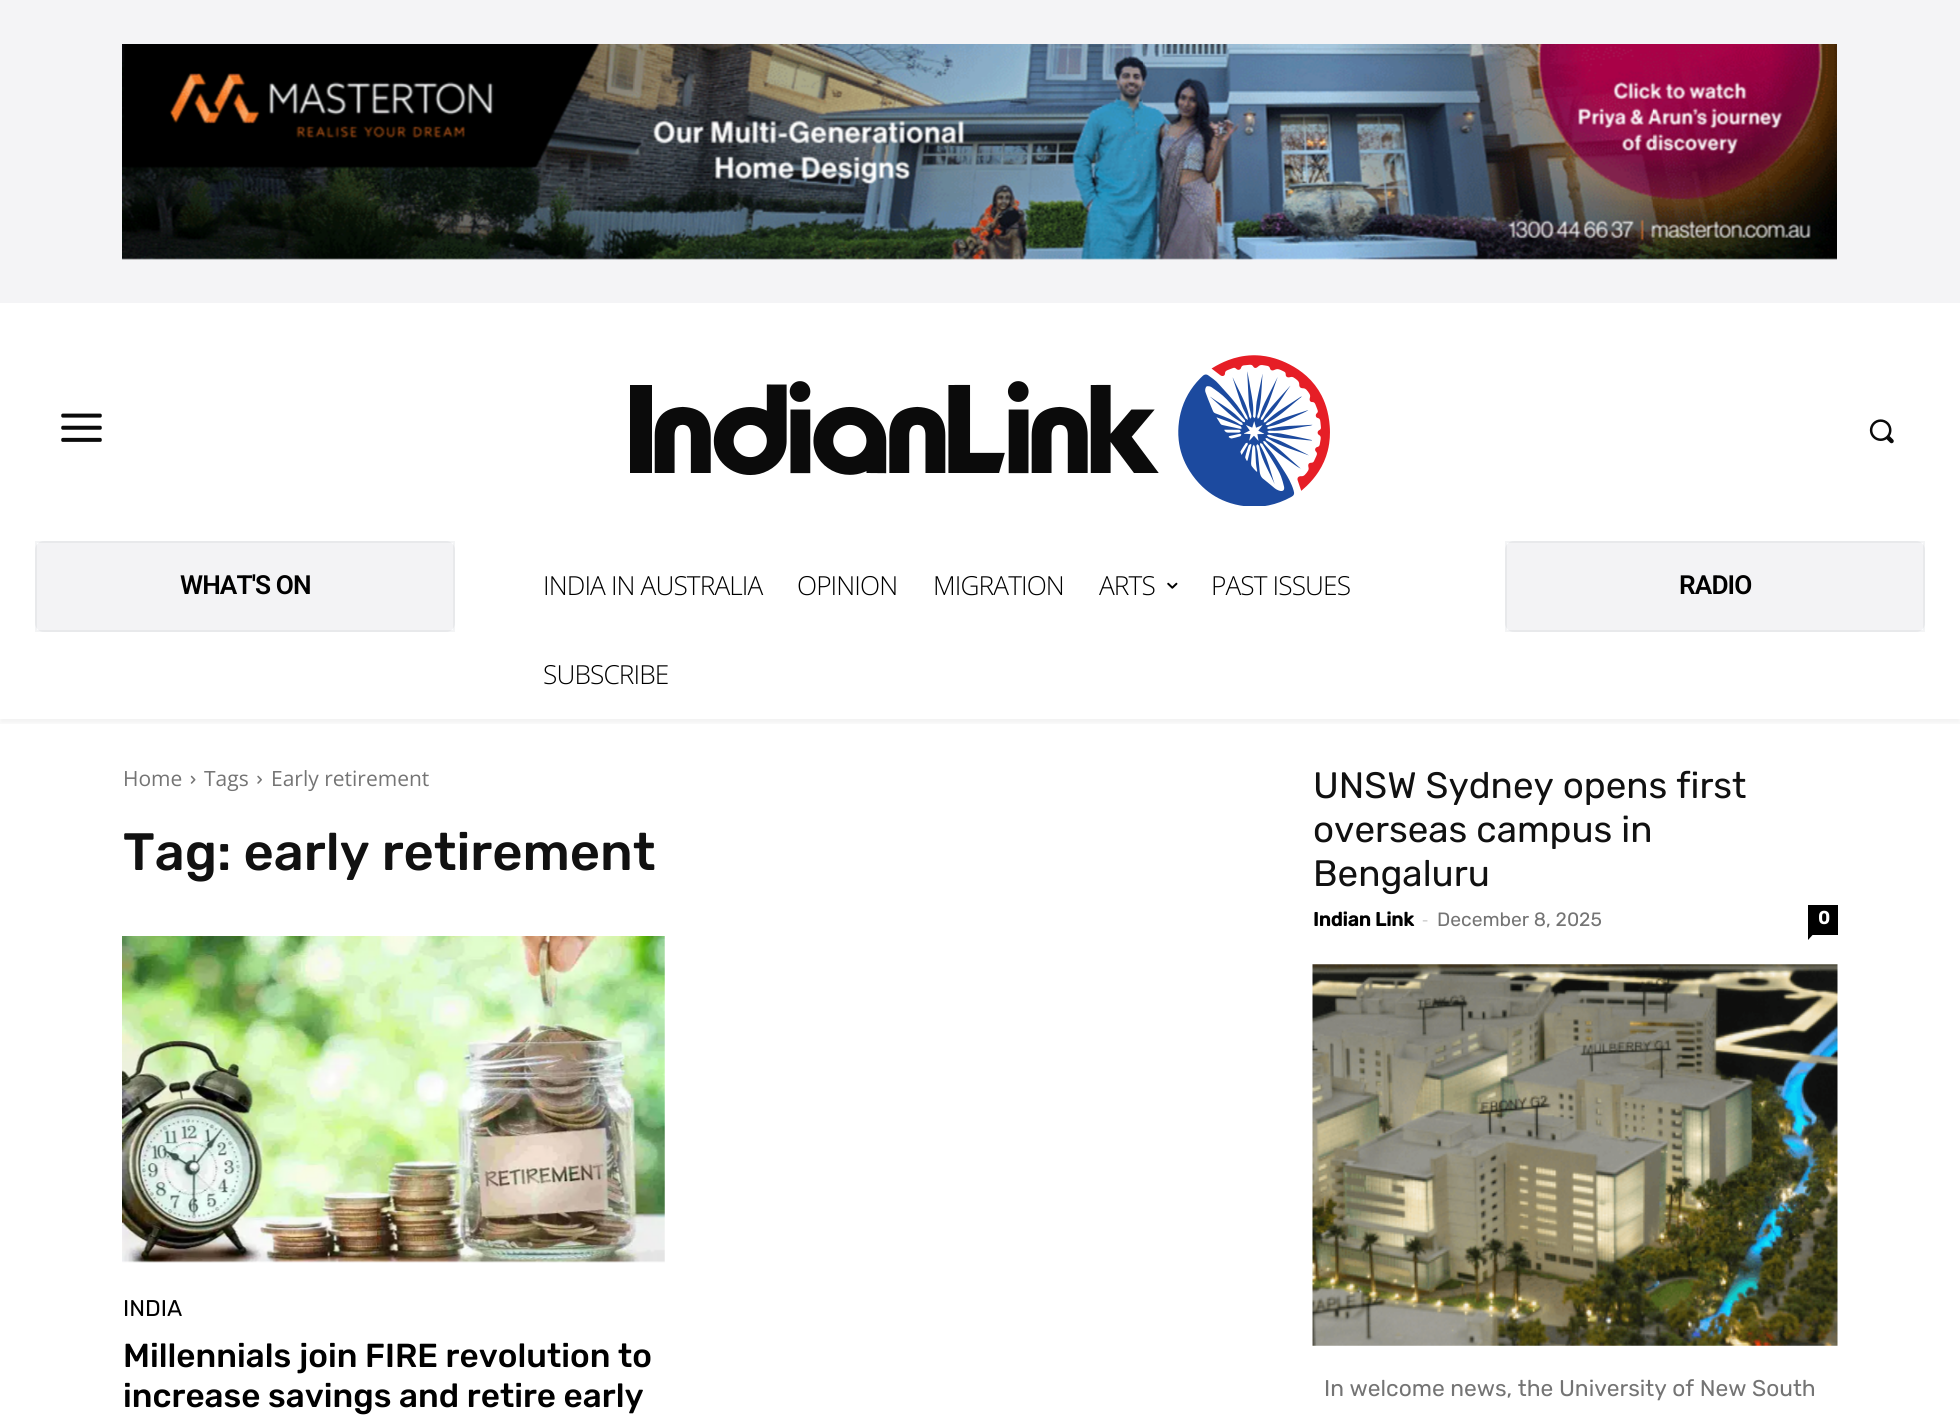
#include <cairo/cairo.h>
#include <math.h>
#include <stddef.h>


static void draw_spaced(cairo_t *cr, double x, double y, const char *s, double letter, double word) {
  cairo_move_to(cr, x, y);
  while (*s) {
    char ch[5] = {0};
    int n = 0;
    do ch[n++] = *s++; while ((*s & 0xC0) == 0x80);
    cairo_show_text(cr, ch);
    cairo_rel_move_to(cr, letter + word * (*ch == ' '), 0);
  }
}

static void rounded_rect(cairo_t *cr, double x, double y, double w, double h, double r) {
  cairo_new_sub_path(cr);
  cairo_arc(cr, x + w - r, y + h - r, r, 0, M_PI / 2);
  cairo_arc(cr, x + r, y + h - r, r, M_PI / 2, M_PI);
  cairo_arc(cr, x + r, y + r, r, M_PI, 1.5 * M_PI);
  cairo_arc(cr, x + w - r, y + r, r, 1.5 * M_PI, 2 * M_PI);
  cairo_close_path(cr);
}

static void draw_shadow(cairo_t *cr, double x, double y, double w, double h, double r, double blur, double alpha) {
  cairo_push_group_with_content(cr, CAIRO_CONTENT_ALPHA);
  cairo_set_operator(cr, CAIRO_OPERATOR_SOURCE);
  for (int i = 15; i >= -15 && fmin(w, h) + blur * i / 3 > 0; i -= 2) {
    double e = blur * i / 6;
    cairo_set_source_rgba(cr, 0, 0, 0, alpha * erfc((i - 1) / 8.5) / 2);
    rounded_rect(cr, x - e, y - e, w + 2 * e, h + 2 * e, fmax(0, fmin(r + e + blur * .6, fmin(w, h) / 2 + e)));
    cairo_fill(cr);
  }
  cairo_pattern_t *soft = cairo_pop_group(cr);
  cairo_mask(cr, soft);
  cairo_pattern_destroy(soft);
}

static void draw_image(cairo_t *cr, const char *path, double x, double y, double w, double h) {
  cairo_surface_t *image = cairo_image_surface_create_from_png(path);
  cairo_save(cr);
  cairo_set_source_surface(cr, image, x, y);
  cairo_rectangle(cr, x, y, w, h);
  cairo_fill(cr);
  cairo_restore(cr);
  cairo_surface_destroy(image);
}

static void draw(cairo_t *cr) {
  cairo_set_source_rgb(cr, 1, 1, 1);
  cairo_paint(cr);
  cairo_set_source_rgb(cr, 244 / 255.0, 244 / 255.0, 246 / 255.0);
  cairo_rectangle(cr, 0, 0, 1960, 303);
  cairo_fill(cr);
  draw_image(cr, "images/1.png", 122, 44, 1715, 216);
  draw_image(cr, "images/2.png", 61, 413, 41, 29);
  draw_image(cr, "images/3.png", 630, 355, 700, 151);
  draw_image(cr, "images/4.png", 1869, 419, 25, 25);
  cairo_set_source_rgb(cr, 243 / 255.0, 243 / 255.0, 245 / 255.0);
  rounded_rect(cr, 35, 541, 420, 91, 9);
  cairo_fill(cr);
  cairo_rectangle(cr, 36, 542, 418, 89);
  cairo_set_source_rgba(cr, 10 / 255.0, 22 / 255.0, 51 / 255.0, 0.05);
  cairo_stroke(cr);
  cairo_set_source_rgb(cr, 243 / 255.0, 243 / 255.0, 245 / 255.0);
  rounded_rect(cr, 1505, 541, 420, 91, 9);
  cairo_fill(cr);
  cairo_rectangle(cr, 1506, 542, 418, 89);
  cairo_set_source_rgba(cr, 10 / 255.0, 22 / 255.0, 51 / 255.0, 0.05);
  cairo_stroke(cr);
  cairo_save(cr);
  cairo_rectangle(cr, 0, 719, 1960, 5);
  cairo_clip(cr);
  cairo_set_source_rgb(cr, 0, 0, 0);
  draw_shadow(cr, 0, 509, 1960, 214, 0, 3.5, 0.06);
  cairo_restore(cr);
  draw_image(cr, "images/5.png", 1167, 582, 11, 7);
  draw_image(cr, "images/6.png", 190, 775, 6, 9);
  draw_image(cr, "images/7.png", 257, 775, 5, 9);
  draw_image(cr, "images/8.png", 122, 936, 543, 327);
  cairo_set_source_rgb(cr, 0, 0, 0);
  cairo_rectangle(cr, 1808, 905, 30, 30);
  cairo_fill(cr);
  cairo_new_path(cr);
  cairo_move_to(cr, 1808, 934.5);
  cairo_line_to(cr, 1813, 934.5);
  cairo_line_to(cr, 1808, 940);
  cairo_close_path(cr);
  cairo_fill(cr);
  draw_image(cr, "images/9.png", 1312, 964, 526, 382);
  cairo_select_font_face(cr, "Roboto SemiBold", CAIRO_FONT_SLANT_NORMAL, CAIRO_FONT_WEIGHT_NORMAL);
  cairo_set_font_size(cr, 26.25);
  draw_spaced(cr, 180, 594, "WHAT'S ON", -0.9, 0);
  cairo_select_font_face(cr, "Open Sans Light", CAIRO_FONT_SLANT_NORMAL, CAIRO_FONT_WEIGHT_NORMAL);
  draw_spaced(cr, 543, 595, "INDIA IN AUSTRALIA", -0.9, 0);
  draw_spaced(cr, 797, 595, "OPINION", -0.9, 0);
  draw_spaced(cr, 933, 595, "MIGRATION", -0.9, 0);
  draw_spaced(cr, 1099, 595, "ARTS", -0.9, 0);
  draw_spaced(cr, 1211, 595, "PAST ISSUES", -0.9, 0);
  draw_spaced(cr, 543, 684, "SUBSCRIBE", -0.9, 0);
  cairo_select_font_face(cr, "Roboto SemiBold", CAIRO_FONT_SLANT_NORMAL, CAIRO_FONT_WEIGHT_NORMAL);
  draw_spaced(cr, 1679, 594, "RADIO", -0.9, 0);
  cairo_select_font_face(cr, "Open Sans", CAIRO_FONT_SLANT_NORMAL, CAIRO_FONT_WEIGHT_NORMAL);
  cairo_set_font_size(cr, 21);
  cairo_set_source_rgb(cr, 116 / 255.0, 116 / 255.0, 116 / 255.0);
  cairo_move_to(cr, 123, 786);
  cairo_show_text(cr, "Home");
  cairo_move_to(cr, 204, 786);
  cairo_show_text(cr, "Tags");
  cairo_move_to(cr, 271, 786);
  cairo_show_text(cr, "Early retirement");
  cairo_select_font_face(cr, "Rubik Medium", CAIRO_FONT_SLANT_NORMAL, CAIRO_FONT_WEIGHT_NORMAL);
  cairo_set_font_size(cr, 52.5);
  cairo_set_source_rgb(cr, 17 / 255.0, 17 / 255.0, 17 / 255.0);
  cairo_move_to(cr, 123, 870);
  cairo_show_text(cr, "Tag: early retirement");
  cairo_select_font_face(cr, "Rubik", CAIRO_FONT_SLANT_NORMAL, CAIRO_FONT_WEIGHT_NORMAL);
  cairo_set_font_size(cr, 22.75);
  cairo_set_source_rgb(cr, 0, 0, 0);
  cairo_move_to(cr, 123, 1316);
  cairo_show_text(cr, "INDIA");
  cairo_select_font_face(cr, "Rubik Medium", CAIRO_FONT_SLANT_NORMAL, CAIRO_FONT_WEIGHT_NORMAL);
  cairo_set_font_size(cr, 33.25);
  cairo_move_to(cr, 123, 1367);
  cairo_show_text(cr, "Millennials join FIRE revolution to");
  cairo_move_to(cr, 123, 1407);
  cairo_show_text(cr, "increase savings and retire early");
  cairo_select_font_face(cr, "Rubik", CAIRO_FONT_SLANT_NORMAL, CAIRO_FONT_WEIGHT_NORMAL);
  cairo_set_font_size(cr, 36.75);
  cairo_set_source_rgb(cr, 17 / 255.0, 17 / 255.0, 17 / 255.0);
  cairo_move_to(cr, 1313, 798);
  cairo_show_text(cr, "UNSW Sydney opens first");
  cairo_move_to(cr, 1313, 842);
  cairo_show_text(cr, "overseas campus in");
  cairo_move_to(cr, 1313, 886);
  cairo_show_text(cr, "Bengaluru");
  cairo_select_font_face(cr, "Rubik", CAIRO_FONT_SLANT_NORMAL, CAIRO_FONT_WEIGHT_BOLD);
  cairo_set_font_size(cr, 19.25);
  cairo_set_source_rgb(cr, 0, 0, 0);
  cairo_move_to(cr, 1313, 926);
  cairo_show_text(cr, "Indian Link");
  cairo_select_font_face(cr, "Open Sans", CAIRO_FONT_SLANT_NORMAL, CAIRO_FONT_WEIGHT_NORMAL);
  cairo_set_source_rgb(cr, 204 / 255.0, 204 / 255.0, 204 / 255.0);
  cairo_move_to(cr, 1422, 926);
  cairo_show_text(cr, "-");
  cairo_select_font_face(cr, "Rubik", CAIRO_FONT_SLANT_NORMAL, CAIRO_FONT_WEIGHT_NORMAL);
  cairo_set_source_rgb(cr, 116 / 255.0, 116 / 255.0, 116 / 255.0);
  cairo_move_to(cr, 1437, 926);
  cairo_show_text(cr, "December 8, 2025");
  cairo_select_font_face(cr, "Rubik", CAIRO_FONT_SLANT_NORMAL, CAIRO_FONT_WEIGHT_BOLD);
  cairo_set_font_size(cr, 18);
  cairo_set_source_rgb(cr, 1, 1, 1);
  cairo_move_to(cr, 1818, 924);
  cairo_show_text(cr, "0");
  cairo_select_font_face(cr, "Rubik", CAIRO_FONT_SLANT_NORMAL, CAIRO_FONT_WEIGHT_NORMAL);
  cairo_set_font_size(cr, 22.75);
  cairo_set_source_rgb(cr, 116 / 255.0, 116 / 255.0, 116 / 255.0);
  cairo_move_to(cr, 1324, 1396);
  cairo_show_text(cr, "In welcome news, the University of New South");
}

int main(void) {
  cairo_surface_t *surface = cairo_image_surface_create(CAIRO_FORMAT_RGB24, 1960, 1419);
  cairo_t *cr = cairo_create(surface);
  cairo_font_options_t *options = cairo_font_options_create();
  cairo_font_options_set_hint_metrics(options, CAIRO_HINT_METRICS_OFF);
  cairo_font_options_set_hint_style(options, CAIRO_HINT_STYLE_NONE);
  cairo_set_font_options(cr, options);
  cairo_set_miter_limit(cr, 4);
  draw(cr);
  cairo_surface_write_to_png(surface, "out.png");
  cairo_font_options_destroy(options);
  cairo_destroy(cr);
  cairo_surface_destroy(surface);
  return 0;
}
